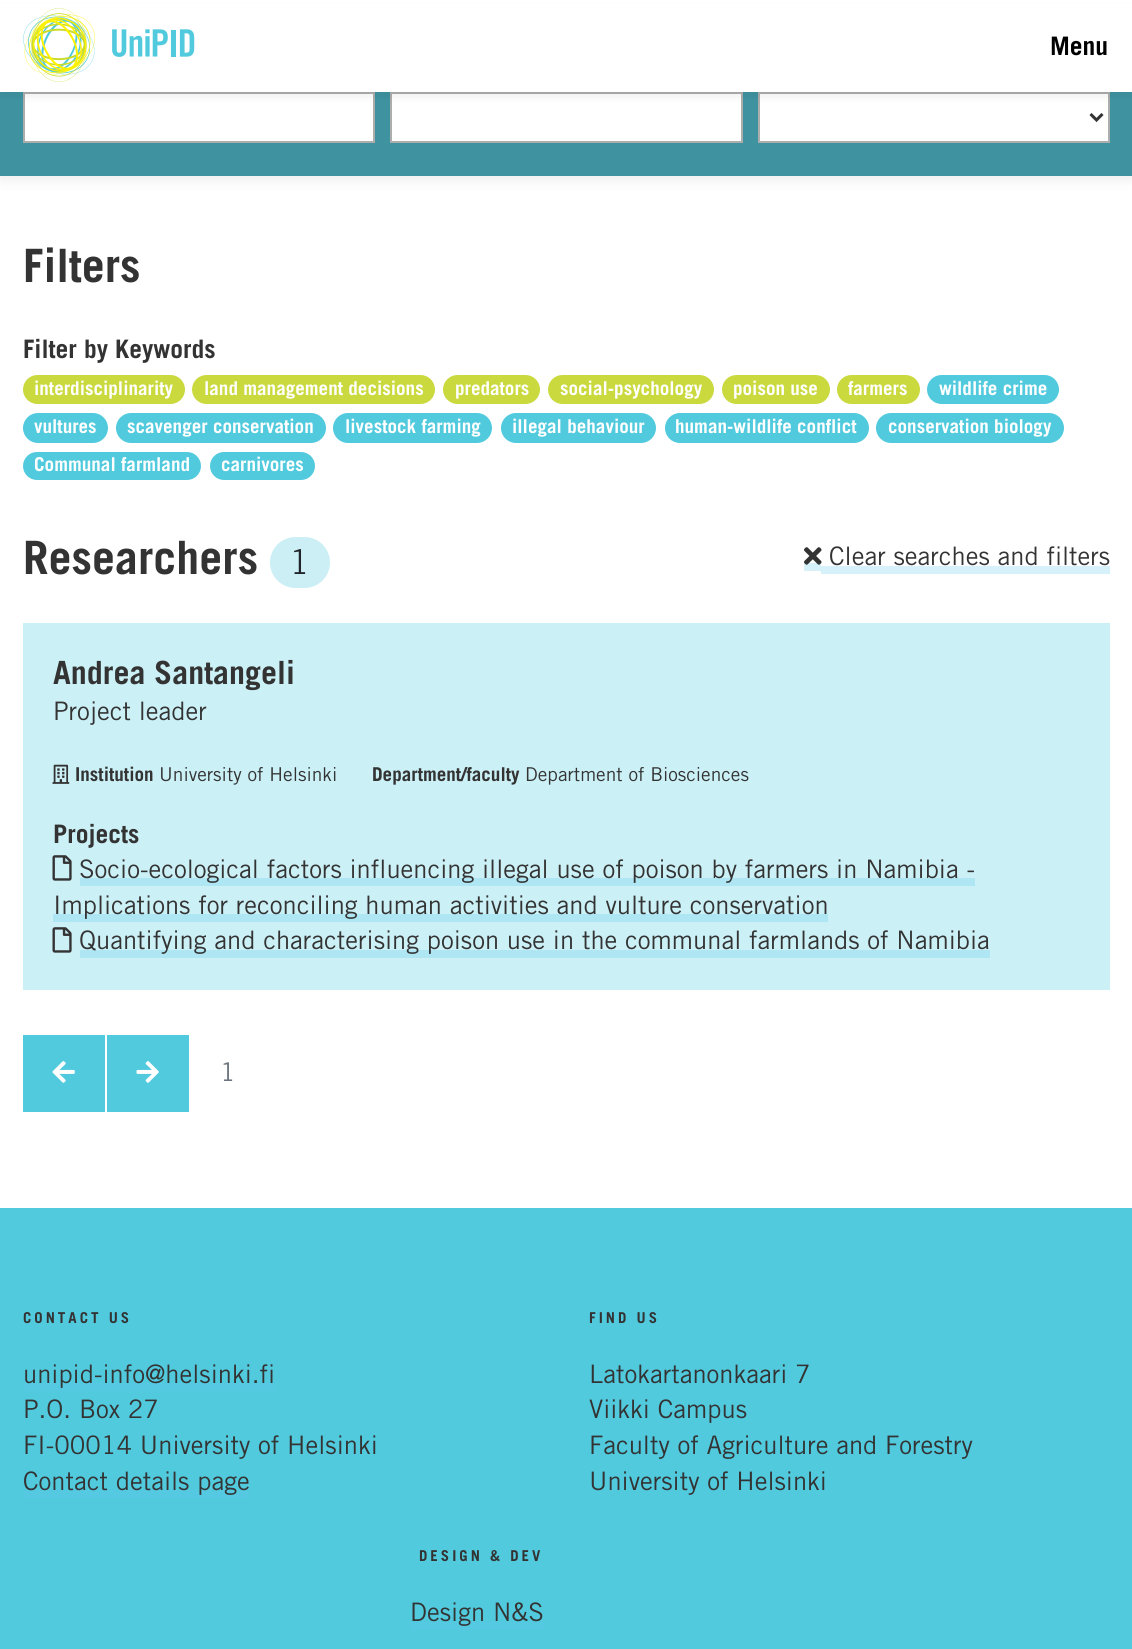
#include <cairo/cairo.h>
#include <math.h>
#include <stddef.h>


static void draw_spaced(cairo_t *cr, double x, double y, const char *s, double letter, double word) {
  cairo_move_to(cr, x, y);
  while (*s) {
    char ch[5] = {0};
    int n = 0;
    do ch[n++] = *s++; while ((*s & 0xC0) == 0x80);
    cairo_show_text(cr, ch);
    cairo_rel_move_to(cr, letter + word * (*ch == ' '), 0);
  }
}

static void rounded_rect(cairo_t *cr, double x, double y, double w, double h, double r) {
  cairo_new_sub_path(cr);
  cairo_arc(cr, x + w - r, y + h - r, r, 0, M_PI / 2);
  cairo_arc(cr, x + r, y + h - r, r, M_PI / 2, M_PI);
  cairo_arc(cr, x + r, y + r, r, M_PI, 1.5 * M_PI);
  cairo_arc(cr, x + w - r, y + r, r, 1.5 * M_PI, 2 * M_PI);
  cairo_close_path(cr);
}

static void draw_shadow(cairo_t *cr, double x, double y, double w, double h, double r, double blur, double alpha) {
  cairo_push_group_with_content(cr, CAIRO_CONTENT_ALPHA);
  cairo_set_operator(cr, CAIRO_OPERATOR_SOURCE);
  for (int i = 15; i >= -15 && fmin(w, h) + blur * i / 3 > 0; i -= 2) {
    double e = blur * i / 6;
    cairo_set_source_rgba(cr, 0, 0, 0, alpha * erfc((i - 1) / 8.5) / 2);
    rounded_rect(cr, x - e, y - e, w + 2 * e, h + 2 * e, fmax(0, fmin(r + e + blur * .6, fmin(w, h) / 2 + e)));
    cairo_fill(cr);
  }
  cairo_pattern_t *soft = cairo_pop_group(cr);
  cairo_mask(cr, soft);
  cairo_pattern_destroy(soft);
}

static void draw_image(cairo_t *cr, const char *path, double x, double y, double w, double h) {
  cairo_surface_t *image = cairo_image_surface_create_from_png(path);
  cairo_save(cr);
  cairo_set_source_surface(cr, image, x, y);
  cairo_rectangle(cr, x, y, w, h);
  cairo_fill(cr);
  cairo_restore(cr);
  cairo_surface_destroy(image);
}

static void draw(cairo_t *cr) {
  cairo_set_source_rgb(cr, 1, 1, 1);
  cairo_paint(cr);
  cairo_set_source_rgb(cr, 0, 0, 0);
  draw_shadow(cr, 0, 20, 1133, 157, 0, 7.5, 0.1);
  cairo_set_source_rgb(cr, 63 / 255.0, 147 / 255.0, 161 / 255.0);
  cairo_rectangle(cr, 0, 92, 1132, 84);
  cairo_fill(cr);
  cairo_set_source_rgb(cr, 1, 1, 1);
  cairo_rectangle(cr, 24, 93, 350, 49);
  cairo_fill_preserve(cr);
  cairo_set_source_rgb(cr, 173 / 255.0, 173 / 255.0, 173 / 255.0);
  cairo_stroke(cr);
  cairo_set_source_rgb(cr, 1, 1, 1);
  cairo_rectangle(cr, 391, 93, 351, 49);
  cairo_fill_preserve(cr);
  cairo_set_source_rgb(cr, 173 / 255.0, 173 / 255.0, 173 / 255.0);
  cairo_stroke(cr);
  cairo_set_source_rgb(cr, 1, 1, 1);
  cairo_rectangle(cr, 759, 93, 350, 49);
  cairo_fill_preserve(cr);
  cairo_set_source_rgb(cr, 173 / 255.0, 173 / 255.0, 173 / 255.0);
  cairo_stroke(cr);
  cairo_set_source_rgb(cr, 0, 0, 0);
  draw_shadow(cr, 0, 6, 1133, 92, 0, 3, 0.05);
  cairo_set_source_rgb(cr, 1, 1, 1);
  cairo_rectangle(cr, 0, 3, 1132, 89);
  cairo_fill(cr);
  draw_image(cr, "images/1.png", 23, 8, 172, 74);
  cairo_new_path(cr);
  cairo_move_to(cr, 1090.5, 114);
  cairo_line_to(cr, 1096.5, 120);
  cairo_line_to(cr, 1102.5, 114);
  cairo_set_source_rgb(cr, 51 / 255.0, 51 / 255.0, 51 / 255.0);
  cairo_set_line_width(cr, 3);
  cairo_stroke(cr);
  cairo_set_source_rgb(cr, 202 / 255.0, 217 / 255.0, 62 / 255.0);
  rounded_rect(cr, 23, 375, 162, 29, 14.5);
  cairo_fill(cr);
  rounded_rect(cr, 192, 375, 243, 29, 14.5);
  cairo_fill(cr);
  rounded_rect(cr, 443, 375, 97, 29, 14.5);
  cairo_fill(cr);
  rounded_rect(cr, 548, 375, 166, 29, 14.5);
  cairo_fill(cr);
  rounded_rect(cr, 722, 375, 108, 29, 14.5);
  cairo_fill(cr);
  rounded_rect(cr, 837, 375, 83, 29, 14.5);
  cairo_fill(cr);
  cairo_set_source_rgb(cr, 81 / 255.0, 202 / 255.0, 222 / 255.0);
  rounded_rect(cr, 927, 375, 132, 29, 14.5);
  cairo_fill(cr);
  rounded_rect(cr, 23, 413, 85, 30, 15);
  cairo_fill(cr);
  rounded_rect(cr, 116, 413, 210, 30, 15);
  cairo_fill(cr);
  rounded_rect(cr, 333, 413, 159, 30, 15);
  cairo_fill(cr);
  rounded_rect(cr, 501, 413, 155, 30, 15);
  cairo_fill(cr);
  rounded_rect(cr, 665, 413, 204, 30, 15);
  cairo_fill(cr);
  rounded_rect(cr, 876, 413, 188, 30, 15);
  cairo_fill(cr);
  rounded_rect(cr, 23, 452, 178, 28, 14);
  cairo_fill(cr);
  rounded_rect(cr, 210, 452, 105, 28, 14);
  cairo_fill(cr);
  cairo_set_source_rgb(cr, 203 / 255.0, 239 / 255.0, 245 / 255.0);
  rounded_rect(cr, 270, 537, 60, 51, 25.5);
  cairo_fill(cr);
  cairo_set_source_rgb(cr, 214 / 255.0, 241 / 255.0, 249 / 255.0);
  cairo_rectangle(cr, 804, 563, 17, 8);
  cairo_fill(cr);
  cairo_rectangle(cr, 821, 566, 289, 8);
  cairo_fill(cr);
  draw_image(cr, "images/2.png", 804, 547, 18, 18);
  cairo_set_source_rgb(cr, 203 / 255.0, 240 / 255.0, 246 / 255.0);
  cairo_rectangle(cr, 23, 623, 1087, 367);
  cairo_fill(cr);
  draw_image(cr, "images/3.png", 52, 764, 18, 20);
  draw_image(cr, "images/4.png", 52, 855, 20, 26);
  cairo_set_source_rgb(cr, 175 / 255.0, 230 / 255.0, 243 / 255.0);
  cairo_rectangle(cr, 80, 878, 895, 8);
  cairo_fill(cr);
  cairo_rectangle(cr, 53, 914, 775, 8);
  cairo_fill(cr);
  draw_image(cr, "images/4.png", 52, 927, 20, 26);
  cairo_rectangle(cr, 80, 950, 910, 8);
  cairo_fill(cr);
  cairo_set_source_rgb(cr, 81 / 255.0, 202 / 255.0, 222 / 255.0);
  cairo_rectangle(cr, 23, 1035, 82, 77);
  cairo_fill(cr);
  draw_image(cr, "images/5.png", 52, 1061, 23, 22);
  cairo_rectangle(cr, 107, 1035, 82, 77);
  cairo_fill(cr);
  draw_image(cr, "images/6.png", 136, 1061, 23, 22);
  cairo_rectangle(cr, 0, 1208, 1132, 441);
  cairo_fill(cr);
  cairo_set_source_rgb(cr, 84 / 255.0, 201 / 255.0, 225 / 255.0);
  cairo_rectangle(cr, 23, 1383, 252, 8);
  cairo_fill(cr);
  cairo_rectangle(cr, 23, 1490, 226, 8);
  cairo_fill(cr);
  cairo_rectangle(cr, 410, 1622, 135, 8);
  cairo_fill(cr);
  cairo_select_font_face(cr, "Trade Gothic", CAIRO_FONT_SLANT_NORMAL, CAIRO_FONT_WEIGHT_BOLD);
  cairo_set_font_size(cr, 25.5);
  cairo_set_source_rgb(cr, 0, 0, 0);
  cairo_move_to(cr, 1050, 55);
  cairo_show_text(cr, "Menu");
  cairo_set_font_size(cr, 46);
  cairo_set_source_rgb(cr, 51 / 255.0, 51 / 255.0, 51 / 255.0);
  cairo_move_to(cr, 23, 282);
  cairo_show_text(cr, "Filters");
  cairo_set_font_size(cr, 25.5);
  cairo_move_to(cr, 23, 358);
  cairo_show_text(cr, "Filter by Keywords");
  cairo_set_font_size(cr, 19.1);
  cairo_set_source_rgb(cr, 1, 1, 1);
  cairo_move_to(cr, 34, 395);
  cairo_show_text(cr, "interdisciplinarity");
  cairo_move_to(cr, 204, 395);
  cairo_show_text(cr, "land management decisions");
  cairo_move_to(cr, 455, 395);
  cairo_show_text(cr, "predators");
  cairo_move_to(cr, 560, 395);
  cairo_show_text(cr, "social-psychology");
  cairo_move_to(cr, 733, 395);
  cairo_show_text(cr, "poison use");
  cairo_move_to(cr, 848, 395);
  cairo_show_text(cr, "farmers");
  cairo_move_to(cr, 939, 395);
  cairo_show_text(cr, "wildlife crime");
  cairo_move_to(cr, 34, 433);
  cairo_show_text(cr, "vultures");
  cairo_move_to(cr, 127, 433);
  cairo_show_text(cr, "scavenger conservation");
  cairo_move_to(cr, 345, 433);
  cairo_show_text(cr, "livestock farming");
  cairo_move_to(cr, 512, 433);
  cairo_show_text(cr, "illegal behaviour");
  cairo_move_to(cr, 675, 433);
  cairo_show_text(cr, "human-wildlife conflict");
  cairo_move_to(cr, 888, 433);
  cairo_show_text(cr, "conservation biology");
  cairo_move_to(cr, 34, 471);
  cairo_show_text(cr, "Communal farmland");
  cairo_move_to(cr, 221, 471);
  cairo_show_text(cr, "carnivores");
  cairo_set_font_size(cr, 46);
  cairo_set_source_rgb(cr, 51 / 255.0, 51 / 255.0, 51 / 255.0);
  cairo_move_to(cr, 23, 574);
  cairo_show_text(cr, "Researchers");
  cairo_select_font_face(cr, "Trade Gothic Light", CAIRO_FONT_SLANT_NORMAL, CAIRO_FONT_WEIGHT_NORMAL);
  cairo_set_font_size(cr, 34);
  cairo_set_source_rgb(cr, 33 / 255.0, 37 / 255.0, 41 / 255.0);
  cairo_move_to(cr, 290, 574);
  cairo_show_text(cr, "1");
  cairo_select_font_face(cr, "Trade Gothic", CAIRO_FONT_SLANT_NORMAL, CAIRO_FONT_WEIGHT_NORMAL);
  cairo_set_font_size(cr, 25.5);
  cairo_set_source_rgb(cr, 51 / 255.0, 51 / 255.0, 51 / 255.0);
  cairo_move_to(cr, 829, 565);
  cairo_show_text(cr, "Clear searches and filters");
  cairo_select_font_face(cr, "Trade Gothic", CAIRO_FONT_SLANT_NORMAL, CAIRO_FONT_WEIGHT_BOLD);
  cairo_set_font_size(cr, 32);
  cairo_move_to(cr, 53, 684);
  cairo_show_text(cr, "Andrea Santangeli");
  cairo_select_font_face(cr, "Trade Gothic", CAIRO_FONT_SLANT_NORMAL, CAIRO_FONT_WEIGHT_NORMAL);
  cairo_set_font_size(cr, 25.5);
  cairo_move_to(cr, 53, 720);
  cairo_show_text(cr, "Project leader");
  cairo_select_font_face(cr, "Trade Gothic", CAIRO_FONT_SLANT_NORMAL, CAIRO_FONT_WEIGHT_BOLD);
  cairo_set_font_size(cr, 19.1);
  cairo_move_to(cr, 75, 781);
  cairo_show_text(cr, "Institution");
  cairo_select_font_face(cr, "Trade Gothic", CAIRO_FONT_SLANT_NORMAL, CAIRO_FONT_WEIGHT_NORMAL);
  cairo_move_to(cr, 159, 781);
  cairo_show_text(cr, "University of Helsinki");
  cairo_select_font_face(cr, "Trade Gothic", CAIRO_FONT_SLANT_NORMAL, CAIRO_FONT_WEIGHT_BOLD);
  cairo_move_to(cr, 372, 781);
  cairo_show_text(cr, "Department/faculty");
  cairo_select_font_face(cr, "Trade Gothic", CAIRO_FONT_SLANT_NORMAL, CAIRO_FONT_WEIGHT_NORMAL);
  cairo_move_to(cr, 525, 781);
  cairo_show_text(cr, "Department of Biosciences");
  cairo_select_font_face(cr, "Trade Gothic", CAIRO_FONT_SLANT_NORMAL, CAIRO_FONT_WEIGHT_BOLD);
  cairo_set_font_size(cr, 25.5);
  cairo_move_to(cr, 53, 843);
  cairo_show_text(cr, "Projects");
  cairo_select_font_face(cr, "Trade Gothic", CAIRO_FONT_SLANT_NORMAL, CAIRO_FONT_WEIGHT_NORMAL);
  cairo_move_to(cr, 79, 878);
  cairo_show_text(cr, "Socio-ecological factors influencing illegal use of poison by farmers in Namibia -");
  cairo_move_to(cr, 53, 914);
  cairo_show_text(cr, "Implications for reconciling human activities and vulture conservation");
  cairo_move_to(cr, 79, 949);
  cairo_show_text(cr, "Quantifying and characterising poison use in the communal farmlands of Namibia");
  cairo_set_source_rgb(cr, 108 / 255.0, 117 / 255.0, 125 / 255.0);
  cairo_move_to(cr, 220, 1081);
  cairo_show_text(cr, "1");
  cairo_select_font_face(cr, "Trade Gothic", CAIRO_FONT_SLANT_NORMAL, CAIRO_FONT_WEIGHT_BOLD);
  cairo_set_font_size(cr, 15);
  cairo_set_source_rgb(cr, 51 / 255.0, 51 / 255.0, 51 / 255.0);
  draw_spaced(cr, 23, 1323, "CONTACT US", 3, 0);
  cairo_select_font_face(cr, "Trade Gothic", CAIRO_FONT_SLANT_NORMAL, CAIRO_FONT_WEIGHT_NORMAL);
  cairo_set_font_size(cr, 25.5);
  cairo_move_to(cr, 23, 1383);
  cairo_show_text(cr, "unipid-info@helsinki.fi");
  cairo_move_to(cr, 23, 1418);
  cairo_show_text(cr, "P.O. Box 27");
  cairo_move_to(cr, 23, 1454);
  cairo_show_text(cr, "FI-00014 University of Helsinki");
  cairo_move_to(cr, 23, 1490);
  cairo_show_text(cr, "Contact details page");
  cairo_select_font_face(cr, "Trade Gothic", CAIRO_FONT_SLANT_NORMAL, CAIRO_FONT_WEIGHT_BOLD);
  cairo_set_font_size(cr, 15);
  draw_spaced(cr, 589, 1323, "FIND US", 3, 0);
  cairo_select_font_face(cr, "Trade Gothic", CAIRO_FONT_SLANT_NORMAL, CAIRO_FONT_WEIGHT_NORMAL);
  cairo_set_font_size(cr, 25.5);
  cairo_move_to(cr, 589, 1383);
  cairo_show_text(cr, "Latokartanonkaari 7");
  cairo_move_to(cr, 589, 1418);
  cairo_show_text(cr, "Viikki Campus");
  cairo_move_to(cr, 589, 1454);
  cairo_show_text(cr, "Faculty of Agriculture and Forestry");
  cairo_move_to(cr, 589, 1490);
  cairo_show_text(cr, "University of Helsinki");
  cairo_select_font_face(cr, "Trade Gothic", CAIRO_FONT_SLANT_NORMAL, CAIRO_FONT_WEIGHT_BOLD);
  cairo_set_font_size(cr, 15);
  draw_spaced(cr, 419, 1561, "DESIGN & DEV", 3, 0);
  cairo_select_font_face(cr, "Trade Gothic", CAIRO_FONT_SLANT_NORMAL, CAIRO_FONT_WEIGHT_NORMAL);
  cairo_set_font_size(cr, 25.5);
  cairo_move_to(cr, 410, 1621);
  cairo_show_text(cr, "Design N&S");
}

int main(void) {
  cairo_surface_t *surface = cairo_image_surface_create(CAIRO_FORMAT_RGB24, 1132, 1649);
  cairo_t *cr = cairo_create(surface);
  cairo_font_options_t *options = cairo_font_options_create();
  cairo_font_options_set_hint_metrics(options, CAIRO_HINT_METRICS_OFF);
  cairo_font_options_set_hint_style(options, CAIRO_HINT_STYLE_NONE);
  cairo_set_font_options(cr, options);
  cairo_set_miter_limit(cr, 4);
  draw(cr);
  cairo_surface_write_to_png(surface, "out.png");
  cairo_font_options_destroy(options);
  cairo_destroy(cr);
  cairo_surface_destroy(surface);
  return 0;
}
